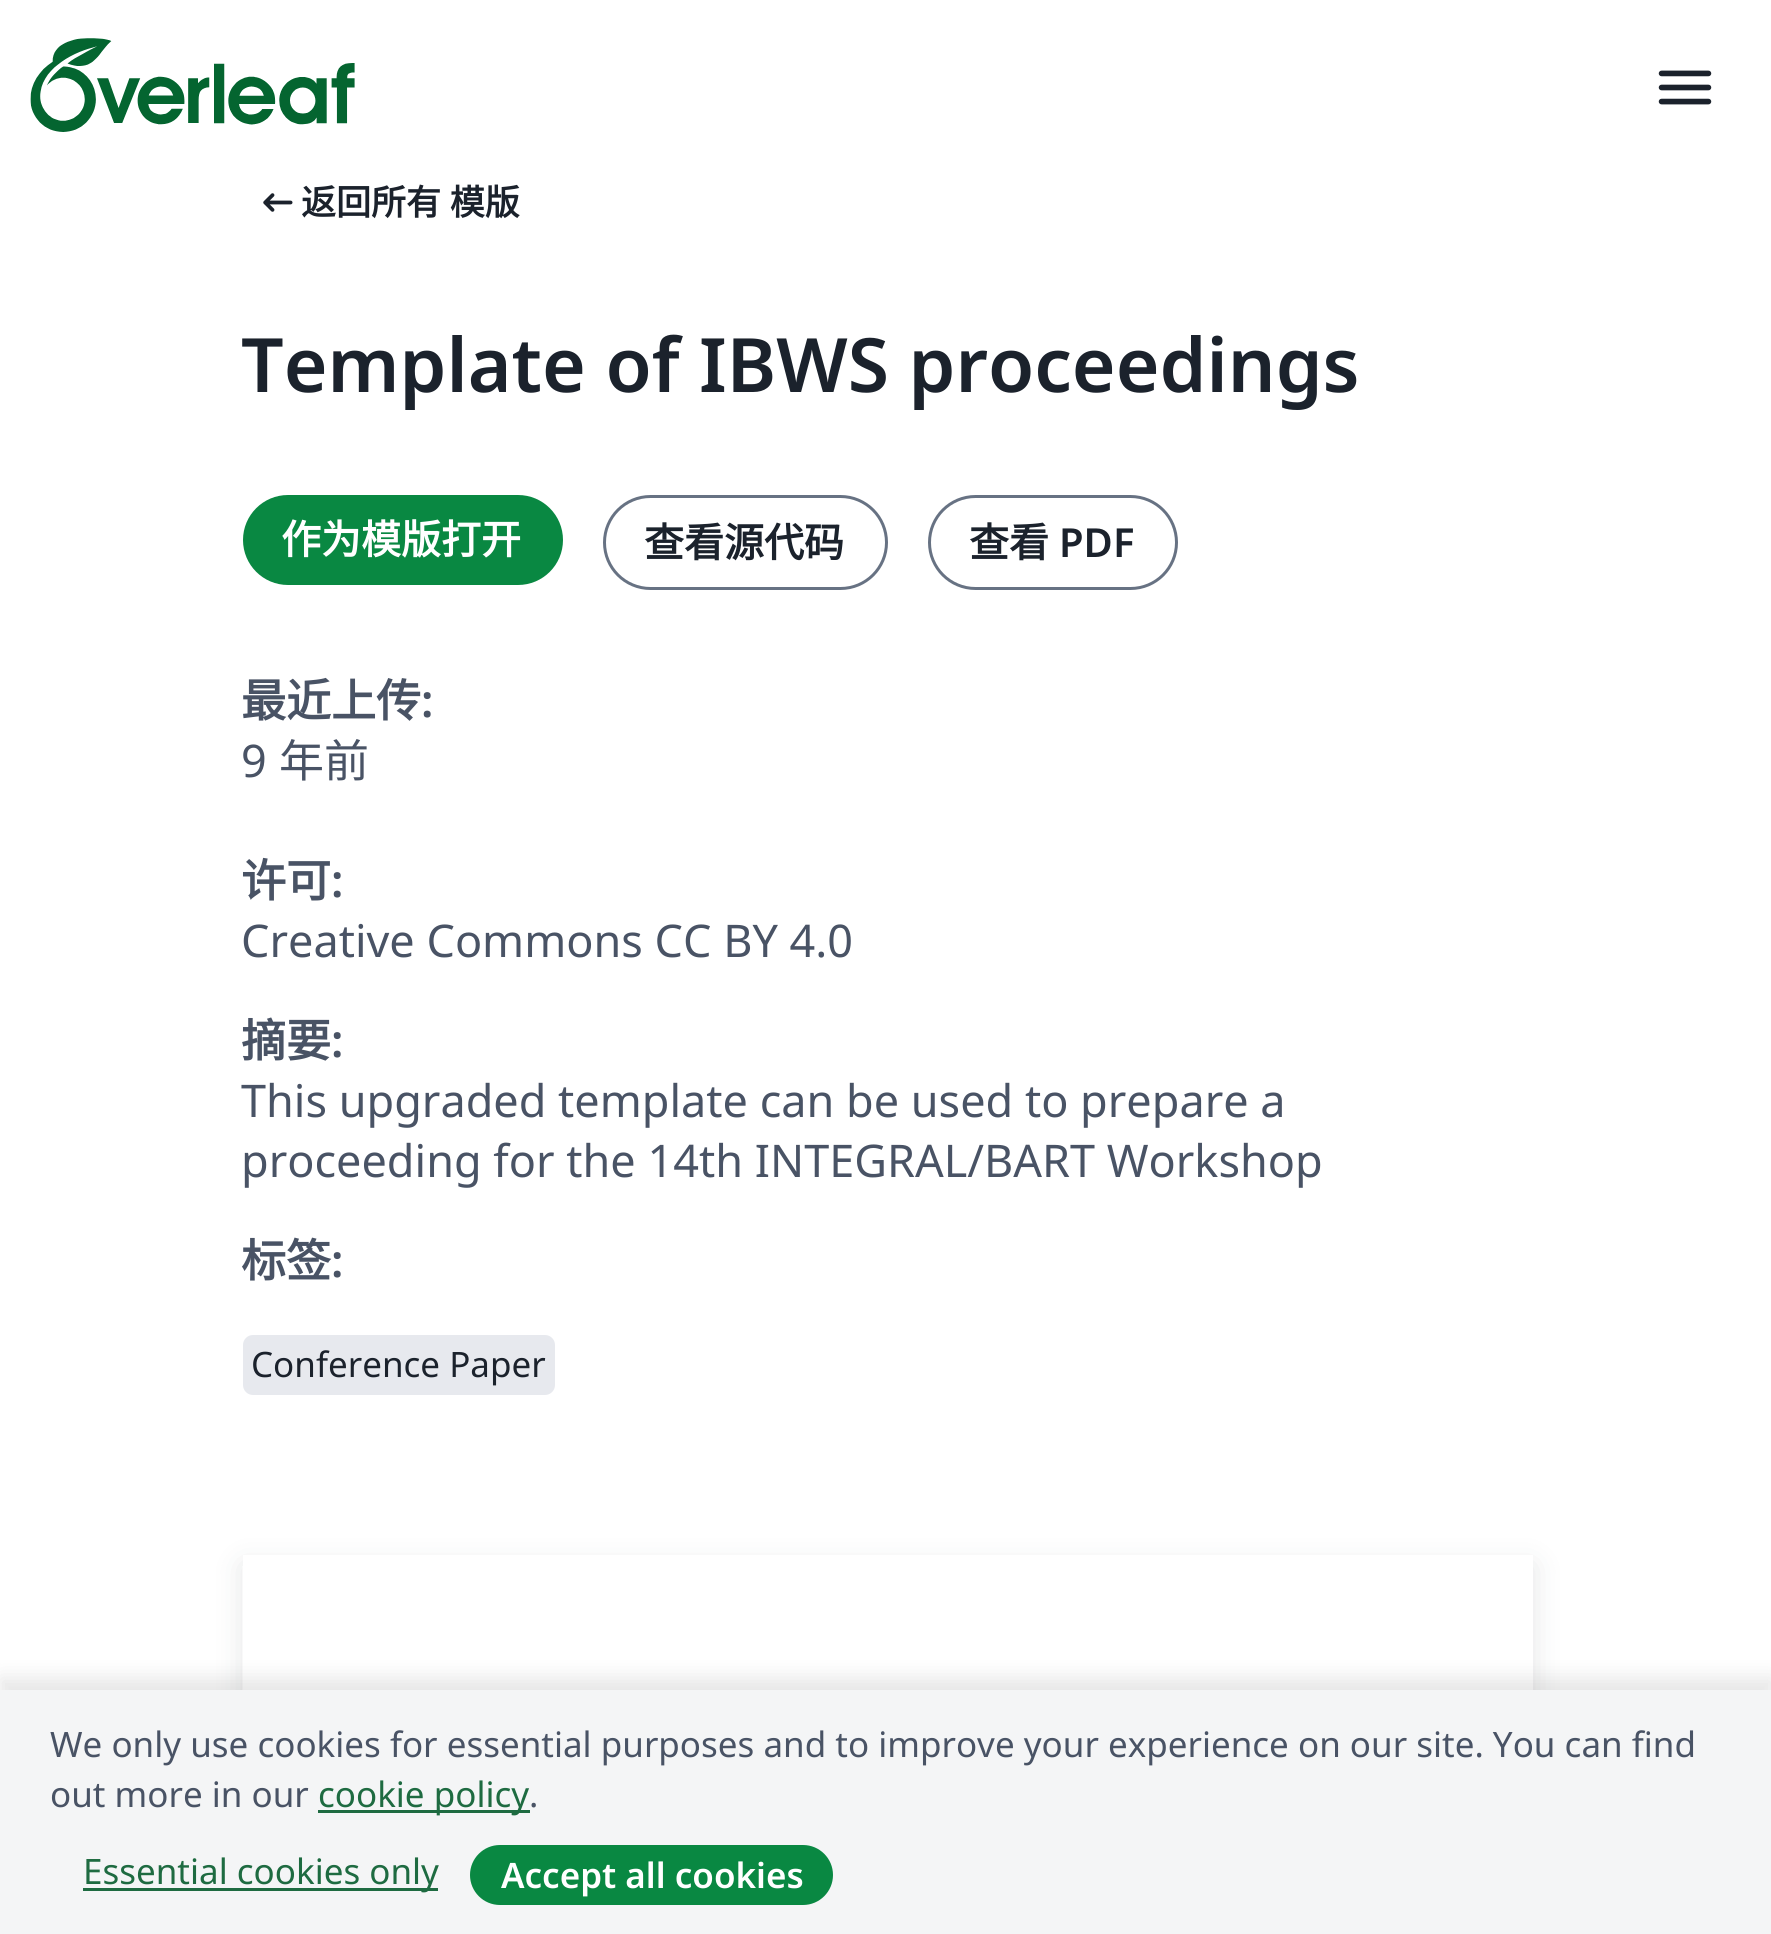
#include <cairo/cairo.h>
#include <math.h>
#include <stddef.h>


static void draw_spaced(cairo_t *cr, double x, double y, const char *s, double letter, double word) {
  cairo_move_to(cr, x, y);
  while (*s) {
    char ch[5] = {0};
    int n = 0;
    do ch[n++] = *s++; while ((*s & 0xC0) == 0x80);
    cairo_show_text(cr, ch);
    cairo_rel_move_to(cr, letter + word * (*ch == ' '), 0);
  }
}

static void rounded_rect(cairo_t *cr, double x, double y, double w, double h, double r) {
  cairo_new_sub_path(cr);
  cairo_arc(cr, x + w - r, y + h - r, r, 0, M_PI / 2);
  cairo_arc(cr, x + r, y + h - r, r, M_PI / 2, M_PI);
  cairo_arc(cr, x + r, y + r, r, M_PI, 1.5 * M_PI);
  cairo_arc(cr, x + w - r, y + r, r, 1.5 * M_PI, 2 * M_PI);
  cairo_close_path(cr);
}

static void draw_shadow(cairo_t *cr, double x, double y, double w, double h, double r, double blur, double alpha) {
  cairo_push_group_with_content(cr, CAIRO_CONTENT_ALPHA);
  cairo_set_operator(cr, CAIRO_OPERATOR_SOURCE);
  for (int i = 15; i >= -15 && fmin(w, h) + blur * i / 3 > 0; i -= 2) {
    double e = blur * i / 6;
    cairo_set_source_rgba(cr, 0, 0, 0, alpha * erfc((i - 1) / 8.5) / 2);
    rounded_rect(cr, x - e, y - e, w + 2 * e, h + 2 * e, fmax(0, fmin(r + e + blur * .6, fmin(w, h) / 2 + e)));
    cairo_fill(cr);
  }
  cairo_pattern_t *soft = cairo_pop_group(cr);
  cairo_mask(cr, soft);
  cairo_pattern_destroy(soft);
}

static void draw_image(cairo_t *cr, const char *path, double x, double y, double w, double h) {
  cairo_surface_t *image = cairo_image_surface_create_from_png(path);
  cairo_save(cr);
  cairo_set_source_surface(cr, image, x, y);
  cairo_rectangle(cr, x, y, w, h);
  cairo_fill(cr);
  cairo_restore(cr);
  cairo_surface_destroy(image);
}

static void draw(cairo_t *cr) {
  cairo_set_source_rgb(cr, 1, 1, 1);
  cairo_paint(cr);
  draw_image(cr, "images/1.png", 30, 38, 325, 94);
  draw_image(cr, "images/2.png", 1658, 70, 54, 35);
  draw_image(cr, "images/3.png", 263, 193, 30, 19);
  cairo_set_source_rgb(cr, 9 / 255.0, 136 / 255.0, 66 / 255.0);
  rounded_rect(cr, 243, 495, 320, 90, 45);
  cairo_fill(cr);
  rounded_rect(cr, 604.5, 496.5, 282, 92, 46);
  cairo_set_source_rgb(cr, 103 / 255.0, 114 / 255.0, 131 / 255.0);
  cairo_set_line_width(cr, 3);
  cairo_stroke(cr);
  rounded_rect(cr, 929.5, 496.5, 247, 92, 46);
  cairo_stroke(cr);
  cairo_set_source_rgb(cr, 231 / 255.0, 233 / 255.0, 238 / 255.0);
  rounded_rect(cr, 243, 1335, 312, 60, 10);
  cairo_fill(cr);
  cairo_save(cr);
  cairo_set_fill_rule(cr, CAIRO_FILL_RULE_EVEN_ODD);
  cairo_new_path(cr);
  cairo_move_to(cr, 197, 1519);
  cairo_line_to(cr, 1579, 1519);
  cairo_line_to(cr, 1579, 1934);
  cairo_line_to(cr, 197, 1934);
  cairo_close_path(cr);
  cairo_move_to(cr, 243, 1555);
  cairo_line_to(cr, 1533, 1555);
  cairo_line_to(cr, 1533, 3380);
  cairo_line_to(cr, 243, 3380);
  cairo_close_path(cr);
  cairo_clip(cr);
  cairo_set_source_rgb(cr, 30 / 255.0, 37 / 255.0, 48 / 255.0);
  draw_shadow(cr, 243, 1565, 1290, 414, 0, 15, 0.12);
  cairo_restore(cr);
  draw_image(cr, "images/4.png", 242, 1566, 1291, 124);
  cairo_set_source_rgb(cr, 0, 0, 0);
  draw_shadow(cr, 0, 1678, 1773, 245, 0, 10, 0.1);
  cairo_set_source_rgb(cr, 244 / 255.0, 245 / 255.0, 246 / 255.0);
  cairo_rectangle(cr, 0, 1690, 1771, 244);
  cairo_fill(cr);
  cairo_set_source_rgb(cr, 30 / 255.0, 107 / 255.0, 65 / 255.0);
  cairo_rectangle(cr, 318, 1810, 212, 3);
  cairo_fill(cr);
  cairo_rectangle(cr, 83, 1888, 355, 3);
  cairo_fill(cr);
  cairo_set_source_rgb(cr, 9 / 255.0, 136 / 255.0, 66 / 255.0);
  rounded_rect(cr, 470, 1845, 363, 60, 30);
  cairo_fill(cr);
  cairo_select_font_face(cr, "Noto Sans CJK SC", CAIRO_FONT_SLANT_NORMAL, CAIRO_FONT_WEIGHT_BOLD);
  cairo_set_font_size(cr, 35);
  cairo_set_source_rgb(cr, 27 / 255.0, 34 / 255.0, 44 / 255.0);
  draw_spaced(cr, 301, 215, "返回所有 模版", 0, 1);
  cairo_select_font_face(cr, "Noto Sans SemiBold", CAIRO_FONT_SLANT_NORMAL, CAIRO_FONT_WEIGHT_NORMAL);
  cairo_set_font_size(cr, 75);
  cairo_move_to(cr, 241, 392);
  cairo_show_text(cr, "Template of IBWS proceedings");
  cairo_select_font_face(cr, "Noto Sans CJK SC", CAIRO_FONT_SLANT_NORMAL, CAIRO_FONT_WEIGHT_BOLD);
  cairo_set_font_size(cr, 40);
  cairo_set_source_rgb(cr, 1, 1, 1);
  cairo_move_to(cr, 281, 554);
  cairo_show_text(cr, "作为模版打开");
  cairo_set_source_rgb(cr, 27 / 255.0, 34 / 255.0, 44 / 255.0);
  cairo_move_to(cr, 644, 557);
  cairo_show_text(cr, "查看源代码");
  cairo_move_to(cr, 969, 557);
  cairo_show_text(cr, "查看");
  cairo_select_font_face(cr, "Noto Sans SemiBold", CAIRO_FONT_SLANT_NORMAL, CAIRO_FONT_WEIGHT_NORMAL);
  cairo_move_to(cr, 1059, 557);
  cairo_show_text(cr, "PDF");
  cairo_select_font_face(cr, "Noto Sans CJK SC", CAIRO_FONT_SLANT_NORMAL, CAIRO_FONT_WEIGHT_BOLD);
  cairo_set_font_size(cr, 45);
  cairo_set_source_rgb(cr, 73 / 255.0, 83 / 255.0, 101 / 255.0);
  cairo_move_to(cr, 241, 717);
  cairo_show_text(cr, "最近上传");
  cairo_select_font_face(cr, "Noto Sans SemiBold", CAIRO_FONT_SLANT_NORMAL, CAIRO_FONT_WEIGHT_NORMAL);
  cairo_move_to(cr, 421, 717);
  cairo_show_text(cr, ":");
  cairo_select_font_face(cr, "Noto Sans", CAIRO_FONT_SLANT_NORMAL, CAIRO_FONT_WEIGHT_NORMAL);
  cairo_move_to(cr, 241, 777);
  cairo_show_text(cr, "9");
  cairo_select_font_face(cr, "Noto Sans CJK SC", CAIRO_FONT_SLANT_NORMAL, CAIRO_FONT_WEIGHT_NORMAL);
  cairo_move_to(cr, 279, 777);
  cairo_show_text(cr, "年前");
  cairo_select_font_face(cr, "Noto Sans CJK SC", CAIRO_FONT_SLANT_NORMAL, CAIRO_FONT_WEIGHT_BOLD);
  cairo_move_to(cr, 241, 897);
  cairo_show_text(cr, "许可");
  cairo_select_font_face(cr, "Noto Sans SemiBold", CAIRO_FONT_SLANT_NORMAL, CAIRO_FONT_WEIGHT_NORMAL);
  cairo_move_to(cr, 331, 897);
  cairo_show_text(cr, ":");
  cairo_select_font_face(cr, "Noto Sans", CAIRO_FONT_SLANT_NORMAL, CAIRO_FONT_WEIGHT_NORMAL);
  cairo_move_to(cr, 241, 957);
  cairo_show_text(cr, "Creative Commons CC BY 4.0");
  cairo_select_font_face(cr, "Noto Sans CJK SC", CAIRO_FONT_SLANT_NORMAL, CAIRO_FONT_WEIGHT_BOLD);
  cairo_move_to(cr, 241, 1057);
  cairo_show_text(cr, "摘要");
  cairo_select_font_face(cr, "Noto Sans SemiBold", CAIRO_FONT_SLANT_NORMAL, CAIRO_FONT_WEIGHT_NORMAL);
  cairo_move_to(cr, 331, 1057);
  cairo_show_text(cr, ":");
  cairo_select_font_face(cr, "Noto Sans", CAIRO_FONT_SLANT_NORMAL, CAIRO_FONT_WEIGHT_NORMAL);
  cairo_move_to(cr, 241, 1117);
  cairo_show_text(cr, "This upgraded template can be used to prepare a");
  cairo_move_to(cr, 241, 1177);
  cairo_show_text(cr, "proceeding for the 14th INTEGRAL/BART Workshop");
  cairo_select_font_face(cr, "Noto Sans CJK SC", CAIRO_FONT_SLANT_NORMAL, CAIRO_FONT_WEIGHT_BOLD);
  cairo_move_to(cr, 241, 1277);
  cairo_show_text(cr, "标签");
  cairo_select_font_face(cr, "Noto Sans SemiBold", CAIRO_FONT_SLANT_NORMAL, CAIRO_FONT_WEIGHT_NORMAL);
  cairo_move_to(cr, 331, 1277);
  cairo_show_text(cr, ":");
  cairo_save(cr);
  cairo_rectangle(cr, 253, 1335, 292, 60);
  cairo_clip(cr);
  cairo_select_font_face(cr, "Noto Sans", CAIRO_FONT_SLANT_NORMAL, CAIRO_FONT_WEIGHT_NORMAL);
  cairo_set_font_size(cr, 35);
  cairo_set_source_rgb(cr, 27 / 255.0, 34 / 255.0, 44 / 255.0);
  cairo_move_to(cr, 251, 1377);
  cairo_show_text(cr, "Conference Paper");
  cairo_restore(cr);
  cairo_select_font_face(cr, "Noto Sans", CAIRO_FONT_SLANT_NORMAL, CAIRO_FONT_WEIGHT_NORMAL);
  cairo_set_font_size(cr, 35);
  cairo_move_to(cr, 50, 1757);
  cairo_show_text(cr, "We only use cookies for essential purposes and to improve your experience on our site. You can find");
  cairo_move_to(cr, 50, 1807);
  cairo_show_text(cr, "out more in our");
  cairo_set_source_rgb(cr, 30 / 255.0, 107 / 255.0, 65 / 255.0);
  cairo_move_to(cr, 318, 1807);
  cairo_show_text(cr, "cookie policy");
  cairo_set_source_rgb(cr, 73 / 255.0, 83 / 255.0, 101 / 255.0);
  cairo_move_to(cr, 529, 1807);
  cairo_show_text(cr, ".");
  cairo_set_source_rgb(cr, 30 / 255.0, 107 / 255.0, 65 / 255.0);
  cairo_move_to(cr, 83, 1884);
  cairo_show_text(cr, "Essential cookies only");
  cairo_select_font_face(cr, "Noto Sans SemiBold", CAIRO_FONT_SLANT_NORMAL, CAIRO_FONT_WEIGHT_NORMAL);
  cairo_set_source_rgb(cr, 1, 1, 1);
  cairo_move_to(cr, 501, 1888);
  cairo_show_text(cr, "Accept all cookies");
}

int main(void) {
  cairo_surface_t *surface = cairo_image_surface_create(CAIRO_FORMAT_RGB24, 1771, 1934);
  cairo_t *cr = cairo_create(surface);
  cairo_font_options_t *options = cairo_font_options_create();
  cairo_font_options_set_hint_metrics(options, CAIRO_HINT_METRICS_OFF);
  cairo_font_options_set_hint_style(options, CAIRO_HINT_STYLE_NONE);
  cairo_set_font_options(cr, options);
  cairo_set_miter_limit(cr, 4);
  draw(cr);
  cairo_surface_write_to_png(surface, "out.png");
  cairo_font_options_destroy(options);
  cairo_destroy(cr);
  cairo_surface_destroy(surface);
  return 0;
}
